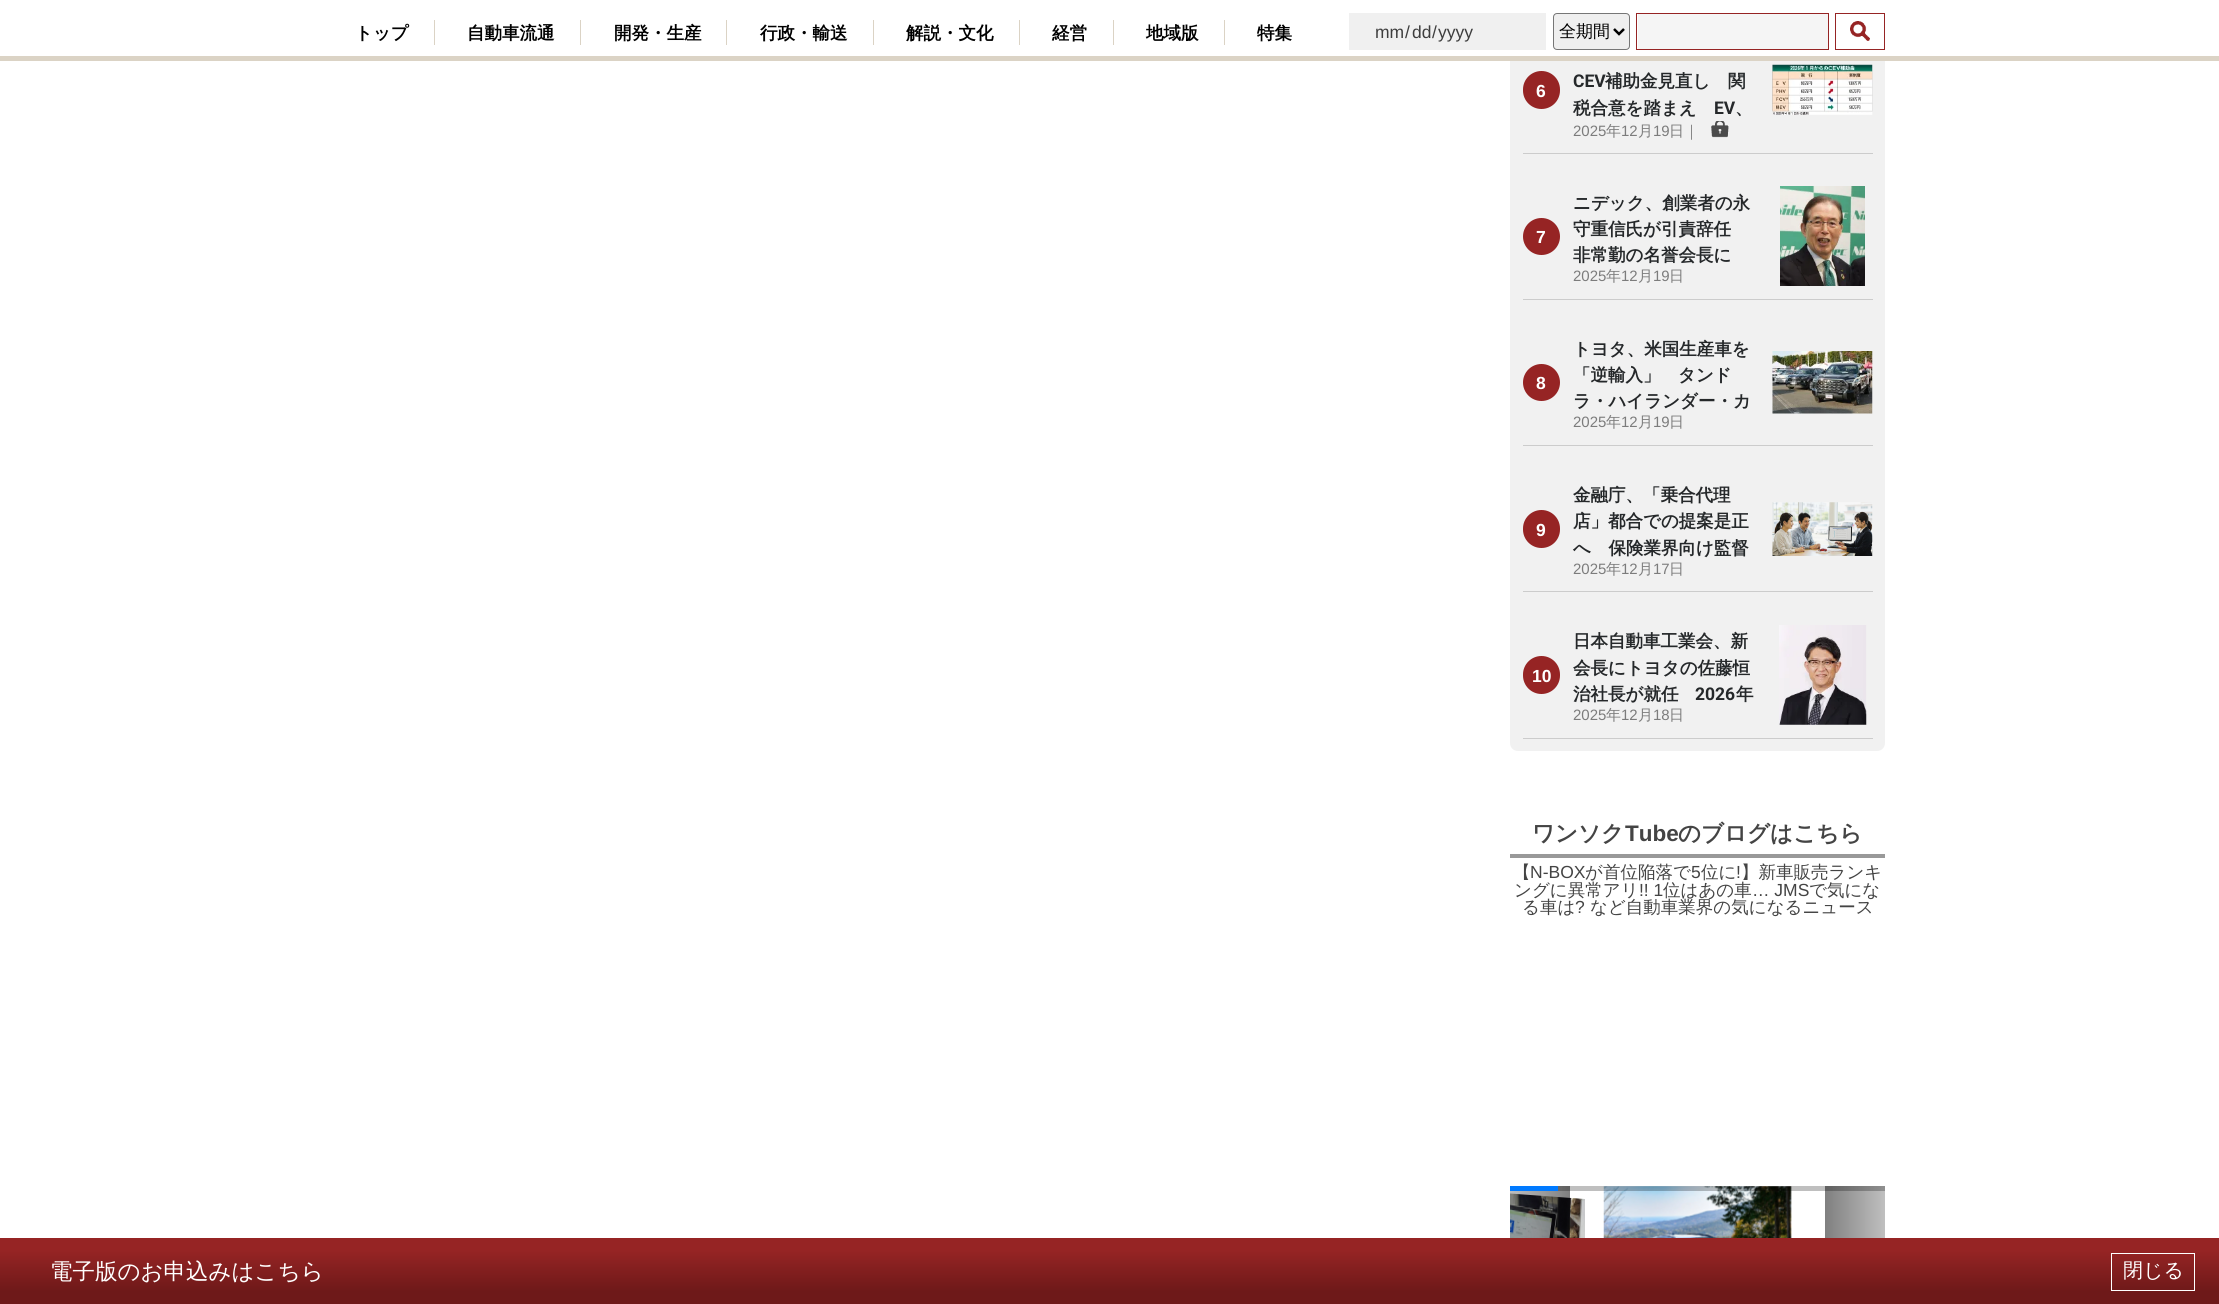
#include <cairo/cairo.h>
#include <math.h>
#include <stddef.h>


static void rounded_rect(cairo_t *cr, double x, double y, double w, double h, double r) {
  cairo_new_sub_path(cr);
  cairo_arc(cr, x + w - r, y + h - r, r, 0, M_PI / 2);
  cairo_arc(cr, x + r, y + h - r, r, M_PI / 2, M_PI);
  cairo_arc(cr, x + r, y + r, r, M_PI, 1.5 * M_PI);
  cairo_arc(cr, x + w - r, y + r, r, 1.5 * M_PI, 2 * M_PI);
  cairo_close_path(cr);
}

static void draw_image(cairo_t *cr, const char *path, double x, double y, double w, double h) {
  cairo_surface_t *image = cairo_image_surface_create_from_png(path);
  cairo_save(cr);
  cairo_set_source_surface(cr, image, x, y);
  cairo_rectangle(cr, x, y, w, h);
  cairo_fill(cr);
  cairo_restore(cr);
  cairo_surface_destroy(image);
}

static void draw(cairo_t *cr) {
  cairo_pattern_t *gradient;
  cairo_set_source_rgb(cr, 1, 1, 1);
  cairo_paint(cr);
  cairo_set_source_rgb(cr, 241 / 255.0, 241 / 255.0, 241 / 255.0);
  cairo_new_path(cr);
  cairo_move_to(cr, 1510, -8);
  cairo_line_to(cr, 1885, -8);
  cairo_line_to(cr, 1885, 743);
  cairo_curve_to(cr, 1885, 747.5, 1881.5, 751, 1877, 751);
  cairo_line_to(cr, 1518, 751);
  cairo_curve_to(cr, 1513.5, 751, 1510, 747.5, 1510, 743);
  cairo_close_path(cr);
  cairo_fill(cr);
  cairo_set_source_rgb(cr, 1, 1, 1);
  cairo_rectangle(cr, 1510, 0, 375, 56);
  cairo_fill(cr);
  cairo_set_source_rgb(cr, 219 / 255.0, 211 / 255.0, 197 / 255.0);
  cairo_rectangle(cr, 0, 56, 2219, 5);
  cairo_fill(cr);
  cairo_rectangle(cr, 434, 20, 1, 25);
  cairo_fill(cr);
  cairo_rectangle(cr, 580, 20, 1, 25);
  cairo_fill(cr);
  cairo_rectangle(cr, 726, 20, 1, 25);
  cairo_fill(cr);
  cairo_rectangle(cr, 873, 20, 1, 25);
  cairo_fill(cr);
  cairo_rectangle(cr, 1019, 20, 1, 25);
  cairo_fill(cr);
  cairo_rectangle(cr, 1113, 20, 1, 25);
  cairo_fill(cr);
  cairo_rectangle(cr, 1224, 20, 1, 25);
  cairo_fill(cr);
  cairo_set_source_rgb(cr, 240 / 255.0, 240 / 255.0, 240 / 255.0);
  cairo_rectangle(cr, 1349, 13, 197, 37);
  cairo_fill(cr);
  cairo_set_source_rgb(cr, 239 / 255.0, 239 / 255.0, 239 / 255.0);
  rounded_rect(cr, 1553.5, 13.5, 76, 36, 3.5);
  cairo_fill_preserve(cr);
  cairo_set_source_rgb(cr, 118 / 255.0, 118 / 255.0, 118 / 255.0);
  cairo_set_line_width(cr, 1);
  cairo_stroke(cr);
  cairo_new_path(cr);
  cairo_move_to(cr, 1614, 29);
  cairo_line_to(cr, 1619, 34);
  cairo_line_to(cr, 1624, 29);
  cairo_set_source_rgb(cr, 0, 0, 0);
  cairo_set_line_width(cr, 2.5);
  cairo_stroke(cr);
  cairo_rectangle(cr, 1636.5, 13.5, 192, 36);
  cairo_set_source_rgb(cr, 150 / 255.0, 36 / 255.0, 36 / 255.0);
  cairo_set_line_width(cr, 1);
  cairo_stroke(cr);
  cairo_set_source_rgb(cr, 245 / 255.0, 245 / 255.0, 245 / 255.0);
  cairo_rectangle(cr, 1638, 14, 190, 35);
  cairo_fill(cr);
  cairo_rectangle(cr, 1835.5, 13.5, 49, 36);
  cairo_set_source_rgb(cr, 150 / 255.0, 36 / 255.0, 36 / 255.0);
  cairo_stroke(cr);
  draw_image(cr, "images/1.png", 1850, 21, 20, 20);
  cairo_set_source_rgb(cr, 204 / 255.0, 204 / 255.0, 204 / 255.0);
  cairo_rectangle(cr, 1523, 153, 350, 1);
  cairo_fill(cr);
  cairo_set_source_rgb(cr, 150 / 255.0, 36 / 255.0, 36 / 255.0);
  rounded_rect(cr, 1523, 71, 37, 38, 18.5);
  cairo_fill(cr);
  draw_image(cr, "images/2.png", 1711, 121, 18, 17);
  draw_image(cr, "images/3.png", 1772, 64, 101, 51);
  cairo_set_source_rgb(cr, 204 / 255.0, 204 / 255.0, 204 / 255.0);
  cairo_rectangle(cr, 1523, 299, 350, 1);
  cairo_fill(cr);
  cairo_set_source_rgb(cr, 150 / 255.0, 36 / 255.0, 36 / 255.0);
  cairo_arc(cr, 1541.5, 236.5, 18.5, 0, 2 * M_PI);
  cairo_fill(cr);
  draw_image(cr, "images/4.png", 1780, 186, 85, 100);
  cairo_set_source_rgb(cr, 204 / 255.0, 204 / 255.0, 204 / 255.0);
  cairo_rectangle(cr, 1523, 445, 350, 1);
  cairo_fill(cr);
  cairo_set_source_rgb(cr, 150 / 255.0, 36 / 255.0, 36 / 255.0);
  cairo_arc(cr, 1541.5, 382.5, 18.5, 0, 2 * M_PI);
  cairo_fill(cr);
  draw_image(cr, "images/5.png", 1772, 351, 101, 63);
  cairo_set_source_rgb(cr, 204 / 255.0, 204 / 255.0, 204 / 255.0);
  cairo_rectangle(cr, 1523, 591, 350, 1);
  cairo_fill(cr);
  cairo_set_source_rgb(cr, 150 / 255.0, 36 / 255.0, 36 / 255.0);
  rounded_rect(cr, 1523, 510, 37, 38, 18.5);
  cairo_fill(cr);
  draw_image(cr, "images/6.png", 1772, 502, 101, 54);
  cairo_set_source_rgb(cr, 204 / 255.0, 204 / 255.0, 204 / 255.0);
  cairo_rectangle(cr, 1523, 738, 350, 1);
  cairo_fill(cr);
  cairo_set_source_rgb(cr, 150 / 255.0, 36 / 255.0, 36 / 255.0);
  rounded_rect(cr, 1523, 656, 37, 38, 18.5);
  cairo_fill(cr);
  draw_image(cr, "images/7.png", 1779, 625, 88, 100);
  cairo_set_source_rgb(cr, 153 / 255.0, 153 / 255.0, 153 / 255.0);
  cairo_rectangle(cr, 1510, 854, 375, 4);
  cairo_fill(cr);
  draw_image(cr, "images/8.png", 1510, 1193, 75, 45);
  gradient = cairo_pattern_create_linear(1570, 1298, 1450, 1298);
  cairo_pattern_add_color_stop_rgba(gradient, 0, 0, 0, 0, 0.5);
  cairo_pattern_add_color_stop_rgba(gradient, 1, 0, 0, 0, 0);
  cairo_set_source(cr, gradient);
  cairo_pattern_destroy(gradient);
  cairo_rectangle(cr, 1510, 1186, 60, 52);
  cairo_fill(cr);
  draw_image(cr, "images/9.png", 1603, 1186, 189, 52);
  gradient = cairo_pattern_create_linear(1825, 1298, 1945, 1298);
  cairo_pattern_add_color_stop_rgba(gradient, 0, 0, 0, 0, 0.5);
  cairo_pattern_add_color_stop_rgba(gradient, 1, 0, 0, 0, 0);
  cairo_set_source(cr, gradient);
  cairo_pattern_destroy(gradient);
  cairo_rectangle(cr, 1825, 1186, 60, 52);
  cairo_fill(cr);
  cairo_set_source_rgba(cr, 0, 0, 0, 0.25);
  cairo_rectangle(cr, 1558, 1186, 327, 5);
  cairo_fill(cr);
  cairo_set_source_rgb(cr, 0, 122 / 255.0, 1);
  cairo_rectangle(cr, 1510, 1186, 48, 5);
  cairo_fill(cr);
  gradient = cairo_pattern_create_linear(1110, 1237, 1110, 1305);
  cairo_pattern_add_color_stop_rgba(gradient, 0.2, 150 / 255.0, 36 / 255.0, 36 / 255.0, 1);
  cairo_pattern_add_color_stop_rgba(gradient, 0.8, 110 / 255.0, 25 / 255.0, 25 / 255.0, 1);
  cairo_set_source(cr, gradient);
  cairo_pattern_destroy(gradient);
  cairo_rectangle(cr, 0, 1238, 2219, 66);
  cairo_fill(cr);
  cairo_rectangle(cr, 2111.5, 1253.5, 83, 37);
  cairo_set_source_rgb(cr, 1, 1, 1);
  cairo_stroke(cr);
  cairo_select_font_face(cr, "WenQuanYi Zen Hei", CAIRO_FONT_SLANT_NORMAL, CAIRO_FONT_WEIGHT_BOLD);
  cairo_set_font_size(cr, 17.5);
  cairo_set_source_rgb(cr, 0, 0, 0);
  cairo_move_to(cr, 355, 39);
  cairo_show_text(cr, "トップ");
  cairo_move_to(cr, 467, 39);
  cairo_show_text(cr, "自動車流通");
  cairo_move_to(cr, 614, 39);
  cairo_show_text(cr, "開発・生産");
  cairo_move_to(cr, 760, 39);
  cairo_show_text(cr, "行政・輸送");
  cairo_move_to(cr, 906, 39);
  cairo_show_text(cr, "解説・文化");
  cairo_move_to(cr, 1052, 39);
  cairo_show_text(cr, "経営");
  cairo_move_to(cr, 1146, 39);
  cairo_show_text(cr, "地域版");
  cairo_move_to(cr, 1257, 39);
  cairo_show_text(cr, "特集");
  cairo_select_font_face(cr, "Liberation Sans", CAIRO_FONT_SLANT_NORMAL, CAIRO_FONT_WEIGHT_NORMAL);
  cairo_set_source_rgb(cr, 62 / 255.0, 62 / 255.0, 62 / 255.0);
  cairo_move_to(cr, 1375, 38);
  cairo_show_text(cr, "mm");
  cairo_move_to(cr, 1405, 38);
  cairo_show_text(cr, "/");
  cairo_move_to(cr, 1412, 38);
  cairo_show_text(cr, "dd");
  cairo_move_to(cr, 1432, 38);
  cairo_show_text(cr, "/");
  cairo_move_to(cr, 1438, 38);
  cairo_show_text(cr, "yyyy");
  cairo_select_font_face(cr, "WenQuanYi Zen Hei Medium", CAIRO_FONT_SLANT_NORMAL, CAIRO_FONT_WEIGHT_NORMAL);
  cairo_set_font_size(cr, 17);
  cairo_set_source_rgb(cr, 0, 0, 0);
  cairo_move_to(cr, 1559, 37);
  cairo_show_text(cr, "全期間");
  cairo_select_font_face(cr, "Liberation Sans", CAIRO_FONT_SLANT_NORMAL, CAIRO_FONT_WEIGHT_BOLD);
  cairo_set_font_size(cr, 17.5);
  cairo_set_source_rgb(cr, 1, 1, 1);
  cairo_move_to(cr, 1536, 97);
  cairo_show_text(cr, "6");
  cairo_select_font_face(cr, "Roboto", CAIRO_FONT_SLANT_NORMAL, CAIRO_FONT_WEIGHT_BOLD);
  cairo_set_source_rgb(cr, 37 / 255.0, 40 / 255.0, 42 / 255.0);
  cairo_move_to(cr, 1573, 87);
  cairo_show_text(cr, "CEV");
  cairo_select_font_face(cr, "WenQuanYi Zen Hei", CAIRO_FONT_SLANT_NORMAL, CAIRO_FONT_WEIGHT_BOLD);
  cairo_move_to(cr, 1605, 87);
  cairo_show_text(cr, "補助金見直し　関");
  cairo_move_to(cr, 1573, 114);
  cairo_show_text(cr, "税合意を踏まえ");
  cairo_select_font_face(cr, "Roboto", CAIRO_FONT_SLANT_NORMAL, CAIRO_FONT_WEIGHT_BOLD);
  cairo_move_to(cr, 1714, 114);
  cairo_show_text(cr, "EV");
  cairo_select_font_face(cr, "WenQuanYi Zen Hei", CAIRO_FONT_SLANT_NORMAL, CAIRO_FONT_WEIGHT_BOLD);
  cairo_move_to(cr, 1735, 114);
  cairo_show_text(cr, "、");
  cairo_select_font_face(cr, "Liberation Sans", CAIRO_FONT_SLANT_NORMAL, CAIRO_FONT_WEIGHT_NORMAL);
  cairo_set_font_size(cr, 15);
  cairo_set_source_rgb(cr, 124 / 255.0, 124 / 255.0, 124 / 255.0);
  cairo_move_to(cr, 1573, 136);
  cairo_show_text(cr, "2025");
  cairo_select_font_face(cr, "WenQuanYi Zen Hei Medium", CAIRO_FONT_SLANT_NORMAL, CAIRO_FONT_WEIGHT_NORMAL);
  cairo_move_to(cr, 1606, 136);
  cairo_show_text(cr, "年");
  cairo_select_font_face(cr, "Liberation Sans", CAIRO_FONT_SLANT_NORMAL, CAIRO_FONT_WEIGHT_NORMAL);
  cairo_move_to(cr, 1621, 136);
  cairo_show_text(cr, "12");
  cairo_select_font_face(cr, "WenQuanYi Zen Hei Medium", CAIRO_FONT_SLANT_NORMAL, CAIRO_FONT_WEIGHT_NORMAL);
  cairo_move_to(cr, 1638, 136);
  cairo_show_text(cr, "月");
  cairo_select_font_face(cr, "Liberation Sans", CAIRO_FONT_SLANT_NORMAL, CAIRO_FONT_WEIGHT_NORMAL);
  cairo_move_to(cr, 1653, 136);
  cairo_show_text(cr, "19");
  cairo_select_font_face(cr, "WenQuanYi Zen Hei Medium", CAIRO_FONT_SLANT_NORMAL, CAIRO_FONT_WEIGHT_NORMAL);
  cairo_move_to(cr, 1669, 136);
  cairo_show_text(cr, "日｜");
  cairo_select_font_face(cr, "Liberation Sans", CAIRO_FONT_SLANT_NORMAL, CAIRO_FONT_WEIGHT_BOLD);
  cairo_set_font_size(cr, 17.5);
  cairo_set_source_rgb(cr, 1, 1, 1);
  cairo_move_to(cr, 1536, 243);
  cairo_show_text(cr, "7");
  cairo_select_font_face(cr, "WenQuanYi Zen Hei", CAIRO_FONT_SLANT_NORMAL, CAIRO_FONT_WEIGHT_BOLD);
  cairo_set_source_rgb(cr, 37 / 255.0, 40 / 255.0, 42 / 255.0);
  cairo_move_to(cr, 1573, 209);
  cairo_show_text(cr, "ニデック、創業者の永");
  cairo_move_to(cr, 1573, 235);
  cairo_show_text(cr, "守重信氏が引責辞任");
  cairo_move_to(cr, 1573, 261);
  cairo_show_text(cr, "非常勤の名誉会長に");
  cairo_select_font_face(cr, "Liberation Sans", CAIRO_FONT_SLANT_NORMAL, CAIRO_FONT_WEIGHT_NORMAL);
  cairo_set_font_size(cr, 15);
  cairo_set_source_rgb(cr, 124 / 255.0, 124 / 255.0, 124 / 255.0);
  cairo_move_to(cr, 1573, 281);
  cairo_show_text(cr, "2025");
  cairo_select_font_face(cr, "WenQuanYi Zen Hei Medium", CAIRO_FONT_SLANT_NORMAL, CAIRO_FONT_WEIGHT_NORMAL);
  cairo_move_to(cr, 1606, 281);
  cairo_show_text(cr, "年");
  cairo_select_font_face(cr, "Liberation Sans", CAIRO_FONT_SLANT_NORMAL, CAIRO_FONT_WEIGHT_NORMAL);
  cairo_move_to(cr, 1621, 281);
  cairo_show_text(cr, "12");
  cairo_select_font_face(cr, "WenQuanYi Zen Hei Medium", CAIRO_FONT_SLANT_NORMAL, CAIRO_FONT_WEIGHT_NORMAL);
  cairo_move_to(cr, 1638, 281);
  cairo_show_text(cr, "月");
  cairo_select_font_face(cr, "Liberation Sans", CAIRO_FONT_SLANT_NORMAL, CAIRO_FONT_WEIGHT_NORMAL);
  cairo_move_to(cr, 1653, 281);
  cairo_show_text(cr, "19");
  cairo_select_font_face(cr, "WenQuanYi Zen Hei Medium", CAIRO_FONT_SLANT_NORMAL, CAIRO_FONT_WEIGHT_NORMAL);
  cairo_move_to(cr, 1669, 281);
  cairo_show_text(cr, "日");
  cairo_select_font_face(cr, "Liberation Sans", CAIRO_FONT_SLANT_NORMAL, CAIRO_FONT_WEIGHT_BOLD);
  cairo_set_font_size(cr, 17.5);
  cairo_set_source_rgb(cr, 1, 1, 1);
  cairo_move_to(cr, 1536, 389);
  cairo_show_text(cr, "8");
  cairo_select_font_face(cr, "WenQuanYi Zen Hei", CAIRO_FONT_SLANT_NORMAL, CAIRO_FONT_WEIGHT_BOLD);
  cairo_set_source_rgb(cr, 37 / 255.0, 40 / 255.0, 42 / 255.0);
  cairo_move_to(cr, 1573, 355);
  cairo_show_text(cr, "トヨタ、米国生産車を");
  cairo_move_to(cr, 1573, 381);
  cairo_show_text(cr, "「逆輸入」　タンド");
  cairo_move_to(cr, 1573, 407);
  cairo_show_text(cr, "ラ・ハイランダー・カ");
  cairo_select_font_face(cr, "Liberation Sans", CAIRO_FONT_SLANT_NORMAL, CAIRO_FONT_WEIGHT_NORMAL);
  cairo_set_font_size(cr, 15);
  cairo_set_source_rgb(cr, 124 / 255.0, 124 / 255.0, 124 / 255.0);
  cairo_move_to(cr, 1573, 427);
  cairo_show_text(cr, "2025");
  cairo_select_font_face(cr, "WenQuanYi Zen Hei Medium", CAIRO_FONT_SLANT_NORMAL, CAIRO_FONT_WEIGHT_NORMAL);
  cairo_move_to(cr, 1606, 427);
  cairo_show_text(cr, "年");
  cairo_select_font_face(cr, "Liberation Sans", CAIRO_FONT_SLANT_NORMAL, CAIRO_FONT_WEIGHT_NORMAL);
  cairo_move_to(cr, 1621, 427);
  cairo_show_text(cr, "12");
  cairo_select_font_face(cr, "WenQuanYi Zen Hei Medium", CAIRO_FONT_SLANT_NORMAL, CAIRO_FONT_WEIGHT_NORMAL);
  cairo_move_to(cr, 1638, 427);
  cairo_show_text(cr, "月");
  cairo_select_font_face(cr, "Liberation Sans", CAIRO_FONT_SLANT_NORMAL, CAIRO_FONT_WEIGHT_NORMAL);
  cairo_move_to(cr, 1653, 427);
  cairo_show_text(cr, "19");
  cairo_select_font_face(cr, "WenQuanYi Zen Hei Medium", CAIRO_FONT_SLANT_NORMAL, CAIRO_FONT_WEIGHT_NORMAL);
  cairo_move_to(cr, 1669, 427);
  cairo_show_text(cr, "日");
  cairo_select_font_face(cr, "Liberation Sans", CAIRO_FONT_SLANT_NORMAL, CAIRO_FONT_WEIGHT_BOLD);
  cairo_set_font_size(cr, 17.5);
  cairo_set_source_rgb(cr, 1, 1, 1);
  cairo_move_to(cr, 1536, 536);
  cairo_show_text(cr, "9");
  cairo_select_font_face(cr, "WenQuanYi Zen Hei", CAIRO_FONT_SLANT_NORMAL, CAIRO_FONT_WEIGHT_BOLD);
  cairo_set_source_rgb(cr, 37 / 255.0, 40 / 255.0, 42 / 255.0);
  cairo_move_to(cr, 1573, 501);
  cairo_show_text(cr, "金融庁、「乗合代理");
  cairo_move_to(cr, 1573, 527);
  cairo_show_text(cr, "店」都合での提案是正");
  cairo_move_to(cr, 1573, 554);
  cairo_show_text(cr, "へ　保険業界向け監督");
  cairo_select_font_face(cr, "Liberation Sans", CAIRO_FONT_SLANT_NORMAL, CAIRO_FONT_WEIGHT_NORMAL);
  cairo_set_font_size(cr, 15);
  cairo_set_source_rgb(cr, 124 / 255.0, 124 / 255.0, 124 / 255.0);
  cairo_move_to(cr, 1573, 574);
  cairo_show_text(cr, "2025");
  cairo_select_font_face(cr, "WenQuanYi Zen Hei Medium", CAIRO_FONT_SLANT_NORMAL, CAIRO_FONT_WEIGHT_NORMAL);
  cairo_move_to(cr, 1606, 574);
  cairo_show_text(cr, "年");
  cairo_select_font_face(cr, "Liberation Sans", CAIRO_FONT_SLANT_NORMAL, CAIRO_FONT_WEIGHT_NORMAL);
  cairo_move_to(cr, 1621, 574);
  cairo_show_text(cr, "12");
  cairo_select_font_face(cr, "WenQuanYi Zen Hei Medium", CAIRO_FONT_SLANT_NORMAL, CAIRO_FONT_WEIGHT_NORMAL);
  cairo_move_to(cr, 1638, 574);
  cairo_show_text(cr, "月");
  cairo_select_font_face(cr, "Liberation Sans", CAIRO_FONT_SLANT_NORMAL, CAIRO_FONT_WEIGHT_NORMAL);
  cairo_move_to(cr, 1653, 574);
  cairo_show_text(cr, "17");
  cairo_select_font_face(cr, "WenQuanYi Zen Hei Medium", CAIRO_FONT_SLANT_NORMAL, CAIRO_FONT_WEIGHT_NORMAL);
  cairo_move_to(cr, 1669, 574);
  cairo_show_text(cr, "日");
  cairo_select_font_face(cr, "Liberation Sans", CAIRO_FONT_SLANT_NORMAL, CAIRO_FONT_WEIGHT_BOLD);
  cairo_set_font_size(cr, 17.5);
  cairo_set_source_rgb(cr, 1, 1, 1);
  cairo_move_to(cr, 1532, 682);
  cairo_show_text(cr, "10");
  cairo_select_font_face(cr, "WenQuanYi Zen Hei", CAIRO_FONT_SLANT_NORMAL, CAIRO_FONT_WEIGHT_BOLD);
  cairo_set_source_rgb(cr, 37 / 255.0, 40 / 255.0, 42 / 255.0);
  cairo_move_to(cr, 1573, 647);
  cairo_show_text(cr, "日本自動車工業会、新");
  cairo_move_to(cr, 1573, 674);
  cairo_show_text(cr, "会長にトヨタの佐藤恒");
  cairo_move_to(cr, 1573, 700);
  cairo_show_text(cr, "治社長が就任");
  cairo_select_font_face(cr, "Roboto", CAIRO_FONT_SLANT_NORMAL, CAIRO_FONT_WEIGHT_BOLD);
  cairo_move_to(cr, 1695, 700);
  cairo_show_text(cr, "2026");
  cairo_select_font_face(cr, "WenQuanYi Zen Hei", CAIRO_FONT_SLANT_NORMAL, CAIRO_FONT_WEIGHT_BOLD);
  cairo_move_to(cr, 1736, 700);
  cairo_show_text(cr, "年");
  cairo_select_font_face(cr, "Liberation Sans", CAIRO_FONT_SLANT_NORMAL, CAIRO_FONT_WEIGHT_NORMAL);
  cairo_set_font_size(cr, 15);
  cairo_set_source_rgb(cr, 124 / 255.0, 124 / 255.0, 124 / 255.0);
  cairo_move_to(cr, 1573, 720);
  cairo_show_text(cr, "2025");
  cairo_select_font_face(cr, "WenQuanYi Zen Hei Medium", CAIRO_FONT_SLANT_NORMAL, CAIRO_FONT_WEIGHT_NORMAL);
  cairo_move_to(cr, 1606, 720);
  cairo_show_text(cr, "年");
  cairo_select_font_face(cr, "Liberation Sans", CAIRO_FONT_SLANT_NORMAL, CAIRO_FONT_WEIGHT_NORMAL);
  cairo_move_to(cr, 1621, 720);
  cairo_show_text(cr, "12");
  cairo_select_font_face(cr, "WenQuanYi Zen Hei Medium", CAIRO_FONT_SLANT_NORMAL, CAIRO_FONT_WEIGHT_NORMAL);
  cairo_move_to(cr, 1638, 720);
  cairo_show_text(cr, "月");
  cairo_select_font_face(cr, "Liberation Sans", CAIRO_FONT_SLANT_NORMAL, CAIRO_FONT_WEIGHT_NORMAL);
  cairo_move_to(cr, 1653, 720);
  cairo_show_text(cr, "18");
  cairo_select_font_face(cr, "WenQuanYi Zen Hei Medium", CAIRO_FONT_SLANT_NORMAL, CAIRO_FONT_WEIGHT_NORMAL);
  cairo_move_to(cr, 1669, 720);
  cairo_show_text(cr, "日");
  cairo_select_font_face(cr, "WenQuanYi Zen Hei", CAIRO_FONT_SLANT_NORMAL, CAIRO_FONT_WEIGHT_BOLD);
  cairo_set_font_size(cr, 22.5);
  cairo_set_source_rgb(cr, 68 / 255.0, 68 / 255.0, 68 / 255.0);
  cairo_move_to(cr, 1532, 841);
  cairo_show_text(cr, "ワンソク");
  cairo_select_font_face(cr, "Liberation Sans", CAIRO_FONT_SLANT_NORMAL, CAIRO_FONT_WEIGHT_BOLD);
  cairo_move_to(cr, 1625, 841);
  cairo_show_text(cr, "Tube");
  cairo_select_font_face(cr, "WenQuanYi Zen Hei", CAIRO_FONT_SLANT_NORMAL, CAIRO_FONT_WEIGHT_BOLD);
  cairo_move_to(cr, 1678, 841);
  cairo_show_text(cr, "のブログはこちら");
  cairo_select_font_face(cr, "WenQuanYi Zen Hei Medium", CAIRO_FONT_SLANT_NORMAL, CAIRO_FONT_WEIGHT_NORMAL);
  cairo_set_font_size(cr, 17.5);
  cairo_move_to(cr, 1513, 878);
  cairo_show_text(cr, "【");
  cairo_select_font_face(cr, "Liberation Sans", CAIRO_FONT_SLANT_NORMAL, CAIRO_FONT_WEIGHT_NORMAL);
  cairo_move_to(cr, 1530, 878);
  cairo_show_text(cr, "N-BOX");
  cairo_select_font_face(cr, "WenQuanYi Zen Hei Medium", CAIRO_FONT_SLANT_NORMAL, CAIRO_FONT_WEIGHT_NORMAL);
  cairo_move_to(cr, 1585, 878);
  cairo_show_text(cr, "が首位陥落で");
  cairo_select_font_face(cr, "Liberation Sans", CAIRO_FONT_SLANT_NORMAL, CAIRO_FONT_WEIGHT_NORMAL);
  cairo_move_to(cr, 1691, 878);
  cairo_show_text(cr, "5");
  cairo_select_font_face(cr, "WenQuanYi Zen Hei Medium", CAIRO_FONT_SLANT_NORMAL, CAIRO_FONT_WEIGHT_NORMAL);
  cairo_move_to(cr, 1701, 878);
  cairo_show_text(cr, "位に");
  cairo_select_font_face(cr, "Liberation Sans", CAIRO_FONT_SLANT_NORMAL, CAIRO_FONT_WEIGHT_NORMAL);
  cairo_move_to(cr, 1736, 878);
  cairo_show_text(cr, "!");
  cairo_select_font_face(cr, "WenQuanYi Zen Hei Medium", CAIRO_FONT_SLANT_NORMAL, CAIRO_FONT_WEIGHT_NORMAL);
  cairo_move_to(cr, 1741, 878);
  cairo_show_text(cr, "】新車販売ランキ");
  cairo_move_to(cr, 1514, 896);
  cairo_show_text(cr, "ングに異常アリ");
  cairo_select_font_face(cr, "Liberation Sans", CAIRO_FONT_SLANT_NORMAL, CAIRO_FONT_WEIGHT_NORMAL);
  cairo_move_to(cr, 1639, 896);
  cairo_show_text(cr, "!! 1");
  cairo_select_font_face(cr, "WenQuanYi Zen Hei Medium", CAIRO_FONT_SLANT_NORMAL, CAIRO_FONT_WEIGHT_NORMAL);
  cairo_move_to(cr, 1663, 896);
  cairo_show_text(cr, "位はあの車");
  cairo_select_font_face(cr, "Liberation Sans", CAIRO_FONT_SLANT_NORMAL, CAIRO_FONT_WEIGHT_NORMAL);
  cairo_move_to(cr, 1752, 896);
  cairo_show_text(cr, "… JMS");
  cairo_select_font_face(cr, "WenQuanYi Zen Hei Medium", CAIRO_FONT_SLANT_NORMAL, CAIRO_FONT_WEIGHT_NORMAL);
  cairo_move_to(cr, 1809, 896);
  cairo_show_text(cr, "で気にな");
  cairo_move_to(cr, 1522, 913);
  cairo_show_text(cr, "る車は");
  cairo_select_font_face(cr, "Liberation Sans", CAIRO_FONT_SLANT_NORMAL, CAIRO_FONT_WEIGHT_NORMAL);
  cairo_move_to(cr, 1575, 913);
  cairo_show_text(cr, "?");
  cairo_select_font_face(cr, "WenQuanYi Zen Hei Medium", CAIRO_FONT_SLANT_NORMAL, CAIRO_FONT_WEIGHT_NORMAL);
  cairo_move_to(cr, 1590, 913);
  cairo_show_text(cr, "など自動車業界の気になるニュース");
  cairo_set_font_size(cr, 22.5);
  cairo_set_source_rgb(cr, 1, 1, 1);
  cairo_move_to(cr, 50, 1279);
  cairo_show_text(cr, "電子版のお申込みはこちら");
  cairo_set_font_size(cr, 20);
  cairo_move_to(cr, 2123, 1277);
  cairo_show_text(cr, "閉じる");
}

int main(void) {
  cairo_surface_t *surface = cairo_image_surface_create(CAIRO_FORMAT_RGB24, 2219, 1304);
  cairo_t *cr = cairo_create(surface);
  cairo_font_options_t *options = cairo_font_options_create();
  cairo_font_options_set_hint_metrics(options, CAIRO_HINT_METRICS_OFF);
  cairo_font_options_set_hint_style(options, CAIRO_HINT_STYLE_NONE);
  cairo_set_font_options(cr, options);
  cairo_set_miter_limit(cr, 4);
  draw(cr);
  cairo_surface_write_to_png(surface, "out.png");
  cairo_font_options_destroy(options);
  cairo_destroy(cr);
  cairo_surface_destroy(surface);
  return 0;
}
